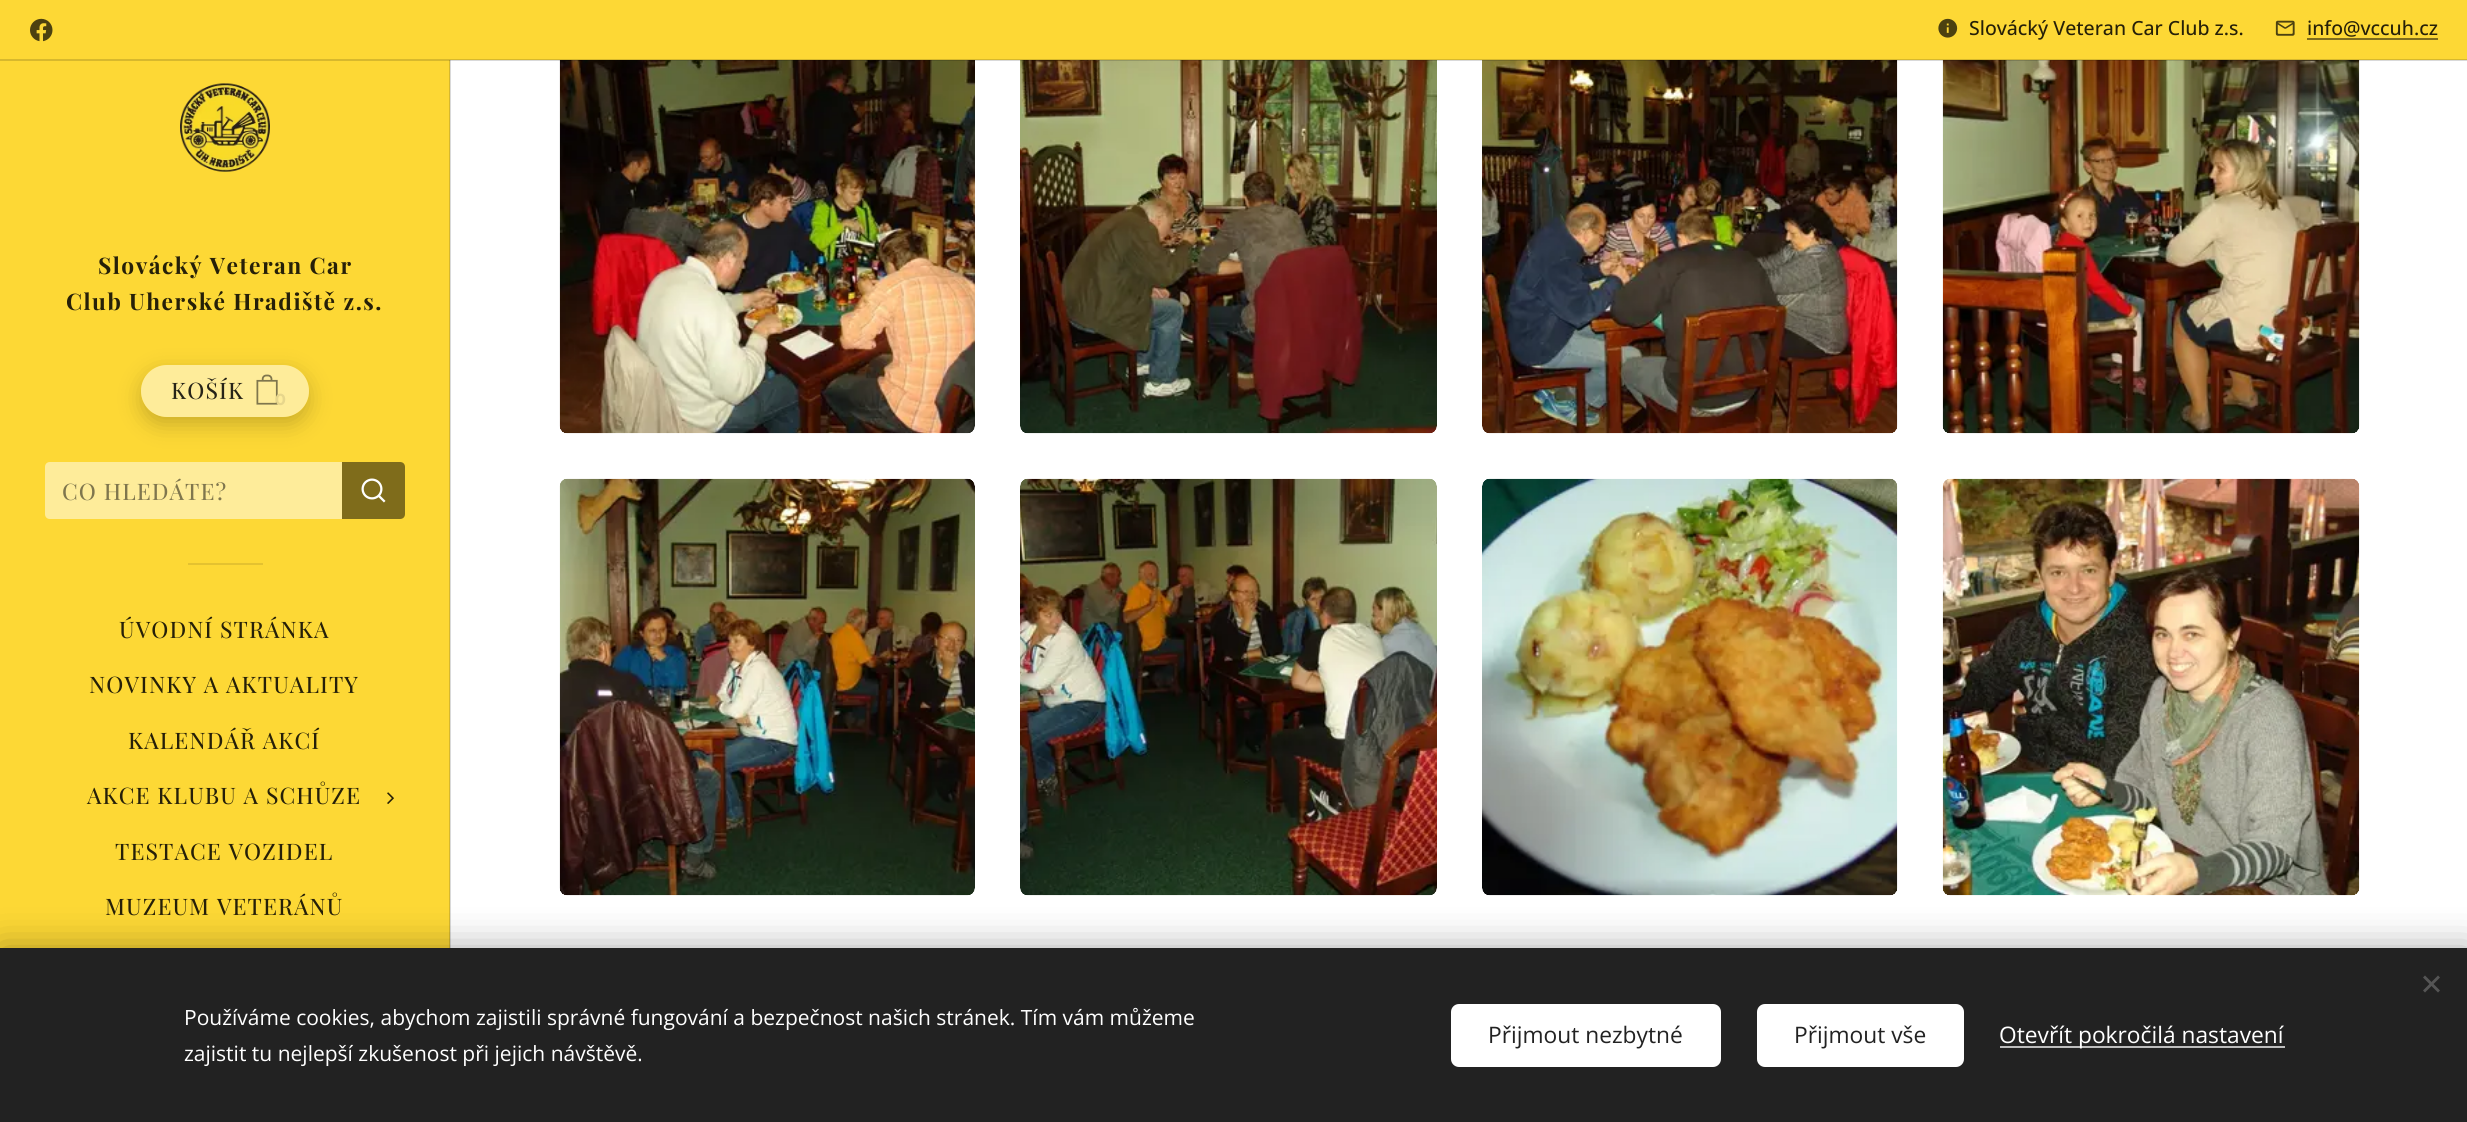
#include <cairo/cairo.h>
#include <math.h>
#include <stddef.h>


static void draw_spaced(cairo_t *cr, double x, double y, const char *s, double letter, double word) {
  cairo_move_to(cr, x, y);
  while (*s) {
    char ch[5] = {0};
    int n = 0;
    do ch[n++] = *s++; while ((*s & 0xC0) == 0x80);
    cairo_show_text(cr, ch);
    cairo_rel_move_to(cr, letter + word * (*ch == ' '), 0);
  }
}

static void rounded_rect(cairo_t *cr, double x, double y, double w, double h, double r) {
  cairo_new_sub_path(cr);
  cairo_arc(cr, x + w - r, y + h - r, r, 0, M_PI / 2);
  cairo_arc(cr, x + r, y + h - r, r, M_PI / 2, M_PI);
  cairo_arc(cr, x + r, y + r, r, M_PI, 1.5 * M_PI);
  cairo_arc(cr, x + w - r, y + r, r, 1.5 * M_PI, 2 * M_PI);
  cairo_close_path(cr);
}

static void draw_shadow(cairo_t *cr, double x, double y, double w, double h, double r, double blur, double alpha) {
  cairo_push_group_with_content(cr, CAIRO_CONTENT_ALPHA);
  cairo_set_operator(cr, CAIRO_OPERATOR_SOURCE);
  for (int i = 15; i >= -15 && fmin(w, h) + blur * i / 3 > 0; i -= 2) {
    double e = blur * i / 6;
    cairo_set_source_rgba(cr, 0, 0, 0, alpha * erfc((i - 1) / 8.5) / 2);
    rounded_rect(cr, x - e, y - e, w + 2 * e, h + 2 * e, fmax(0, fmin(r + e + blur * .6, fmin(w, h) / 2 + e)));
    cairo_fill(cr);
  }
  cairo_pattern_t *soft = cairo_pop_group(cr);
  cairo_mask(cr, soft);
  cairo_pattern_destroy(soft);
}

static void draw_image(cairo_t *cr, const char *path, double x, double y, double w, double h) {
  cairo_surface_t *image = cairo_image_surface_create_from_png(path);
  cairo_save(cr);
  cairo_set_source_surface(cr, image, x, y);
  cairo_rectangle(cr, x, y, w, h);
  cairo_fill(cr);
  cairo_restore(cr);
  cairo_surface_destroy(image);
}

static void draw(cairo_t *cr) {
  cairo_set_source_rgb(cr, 1, 1, 1);
  cairo_paint(cr);
  cairo_set_source_rgb(cr, 217 / 255.0, 217 / 255.0, 217 / 255.0);
  cairo_rectangle(cr, 450, 60, 1, 888);
  cairo_fill(cr);
  cairo_set_source_rgb(cr, 253 / 255.0, 216 / 255.0, 53 / 255.0);
  cairo_rectangle(cr, 0, 0, 2467, 60);
  cairo_fill(cr);
  draw_image(cr, "images/1.png", 30, 18, 23, 24);
  draw_image(cr, "images/2.png", 1938, 18, 20, 20);
  draw_image(cr, "images/3.png", 2275, 20, 20, 16);
  cairo_set_source_rgb(cr, 127 / 255.0, 108 / 255.0, 27 / 255.0);
  cairo_rectangle(cr, 2307, 38, 131, 2);
  cairo_fill(cr);
  cairo_set_source_rgb(cr, 253 / 255.0, 216 / 255.0, 53 / 255.0);
  cairo_rectangle(cr, 0, 60, 449, 888);
  cairo_fill(cr);
  cairo_set_source_rgb(cr, 215 / 255.0, 184 / 255.0, 45 / 255.0);
  cairo_rectangle(cr, 449, 60, 1, 888);
  cairo_fill(cr);
  draw_image(cr, "images/8.png", 559, 60, 416, 374);
  draw_image(cr, "images/9.png", 1020, 60, 417, 374);
  draw_image(cr, "images/10.png", 1482, 60, 416, 374);
  draw_image(cr, "images/11.png", 1942, 60, 418, 374);
  cairo_set_source_rgba(cr, 0, 0, 0, 0.15);
  cairo_rectangle(cr, 0, 59, 2467, 2);
  cairo_fill(cr);
  draw_image(cr, "images/4.png", 180, 83, 90, 89);
  cairo_save(cr);
  cairo_set_fill_rule(cr, CAIRO_FILL_RULE_EVEN_ODD);
  cairo_new_path(cr);
  cairo_move_to(cr, 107, 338);
  cairo_line_to(cr, 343, 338);
  cairo_line_to(cr, 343, 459);
  cairo_line_to(cr, 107, 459);
  cairo_close_path(cr);
  cairo_move_to(cr, 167, 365);
  cairo_line_to(cr, 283, 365);
  cairo_curve_to(cr, 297.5, 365, 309, 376.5, 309, 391);
  cairo_curve_to(cr, 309, 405.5, 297.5, 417, 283, 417);
  cairo_line_to(cr, 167, 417);
  cairo_curve_to(cr, 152.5, 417, 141, 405.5, 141, 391);
  cairo_curve_to(cr, 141, 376.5, 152.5, 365, 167, 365);
  cairo_close_path(cr);
  cairo_clip(cr);
  cairo_set_source_rgb(cr, 0, 0, 0);
  draw_shadow(cr, 141, 372, 168, 53, 26, 11, 0.2);
  cairo_restore(cr);
  cairo_set_source_rgba(cr, 1, 1, 1, 0.5);
  rounded_rect(cr, 141, 365, 168, 52, 26);
  cairo_fill(cr);
  draw_image(cr, "images/5.png", 256, 374, 22, 31);
  cairo_set_source_rgb(cr, 254 / 255.0, 236 / 255.0, 154 / 255.0);
  cairo_new_path(cr);
  cairo_move_to(cr, 50, 462);
  cairo_line_to(cr, 342, 462);
  cairo_line_to(cr, 342, 519);
  cairo_line_to(cr, 50, 519);
  cairo_curve_to(cr, 47, 519, 45, 517, 45, 514);
  cairo_line_to(cr, 45, 467);
  cairo_curve_to(cr, 45, 464, 47, 462, 50, 462);
  cairo_close_path(cr);
  cairo_fill(cr);
  cairo_set_source_rgb(cr, 127 / 255.0, 108 / 255.0, 27 / 255.0);
  cairo_new_path(cr);
  cairo_move_to(cr, 342, 462);
  cairo_line_to(cr, 400, 462);
  cairo_curve_to(cr, 403, 462, 405, 464, 405, 467);
  cairo_line_to(cr, 405, 514);
  cairo_curve_to(cr, 405, 517, 403, 519, 400, 519);
  cairo_line_to(cr, 342, 519);
  cairo_close_path(cr);
  cairo_fill(cr);
  draw_image(cr, "images/6.png", 361, 478, 25, 25);
  cairo_set_source_rgb(cr, 228 / 255.0, 194 / 255.0, 48 / 255.0);
  cairo_rectangle(cr, 188, 563, 75, 2);
  cairo_fill(cr);
  draw_image(cr, "images/7.png", 387, 792, 7, 12);
  draw_image(cr, "images/12.png", 559, 478, 416, 418);
  draw_image(cr, "images/13.png", 1020, 478, 417, 418);
  draw_image(cr, "images/14.png", 1482, 478, 416, 418);
  draw_image(cr, "images/15.png", 1942, 478, 418, 418);
  cairo_set_source_rgb(cr, 0, 0, 0);
  draw_shadow(cr, 0, 948, 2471, 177, 0, 19, 0.33);
  cairo_set_source_rgb(cr, 34 / 255.0, 34 / 255.0, 34 / 255.0);
  cairo_rectangle(cr, 0, 948, 2467, 174);
  cairo_fill(cr);
  cairo_set_source_rgb(cr, 85 / 255.0, 85 / 255.0, 85 / 255.0);
  cairo_new_path(cr);
  cairo_move_to(cr, 2423, 990.5);
  cairo_line_to(cr, 2438, 975.5);
  cairo_line_to(cr, 2440, 977.5);
  cairo_line_to(cr, 2425, 992.5);
  cairo_close_path(cr);
  cairo_fill(cr);
  cairo_new_path(cr);
  cairo_move_to(cr, 2425, 975.5);
  cairo_line_to(cr, 2440, 990.5);
  cairo_line_to(cr, 2438, 992.5);
  cairo_line_to(cr, 2423, 977.5);
  cairo_close_path(cr);
  cairo_fill(cr);
  cairo_set_source_rgb(cr, 1, 1, 1);
  rounded_rect(cr, 1451, 1004, 270, 63, 8);
  cairo_fill(cr);
  rounded_rect(cr, 1757, 1004, 207, 63, 8);
  cairo_fill(cr);
  cairo_set_source_rgb(cr, 189 / 255.0, 189 / 255.0, 189 / 255.0);
  cairo_rectangle(cr, 2000, 1046, 285, 2);
  cairo_fill(cr);
  cairo_select_font_face(cr, "Open Sans Medium", CAIRO_FONT_SLANT_NORMAL, CAIRO_FONT_WEIGHT_NORMAL);
  cairo_set_font_size(cr, 19.5);
  cairo_set_source_rgb(cr, 38 / 255.0, 32 / 255.0, 8 / 255.0);
  cairo_move_to(cr, 1969, 35);
  cairo_show_text(cr, "Slovácký Veteran Car Club z.s.");
  cairo_move_to(cr, 2307, 35);
  cairo_show_text(cr, "info@vccuh.cz");
  cairo_select_font_face(cr, "Playfair Display", CAIRO_FONT_SLANT_NORMAL, CAIRO_FONT_WEIGHT_BOLD);
  cairo_set_font_size(cr, 22.75);
  draw_spaced(cr, 98, 274, "Slovácký Veteran Car", 1.5, 0);
  draw_spaced(cr, 66, 310, "Club Uherské Hradiště z.s.", 1.5, 0);
  cairo_select_font_face(cr, "Playfair Display", CAIRO_FONT_SLANT_NORMAL, CAIRO_FONT_WEIGHT_NORMAL);
  cairo_set_source_rgb(cr, 38 / 255.0, 35 / 255.0, 23 / 255.0);
  draw_spaced(cr, 171, 399, "KOŠÍK", 1.1, 0);
  cairo_select_font_face(cr, "Montserrat", CAIRO_FONT_SLANT_NORMAL, CAIRO_FONT_WEIGHT_BOLD);
  cairo_set_font_size(cr, 16);
  cairo_set_source_rgb(cr, 231 / 255.0, 214 / 255.0, 140 / 255.0);
  cairo_move_to(cr, 275, 405);
  cairo_show_text(cr, "0");
  cairo_select_font_face(cr, "Playfair Display", CAIRO_FONT_SLANT_NORMAL, CAIRO_FONT_WEIGHT_NORMAL);
  cairo_set_font_size(cr, 22.75);
  cairo_set_source_rgb(cr, 127 / 255.0, 118 / 255.0, 77 / 255.0);
  draw_spaced(cr, 62, 500, "CO HLEDÁTE?", 1.1, 0);
  cairo_set_source_rgb(cr, 38 / 255.0, 32 / 255.0, 8 / 255.0);
  draw_spaced(cr, 119, 638, "ÚVODNÍ STRÁNKA", 1.1, 0);
  draw_spaced(cr, 89, 693, "NOVINKY A AKTUALITY", 1.1, 0);
  draw_spaced(cr, 128, 749, "KALENDÁŘ AKCÍ", 1.1, 0);
  draw_spaced(cr, 87, 804, "AKCE KLUBU A SCHŮZE", 1.1, 0);
  draw_spaced(cr, 115, 860, "TESTACE VOZIDEL", 1.1, 0);
  draw_spaced(cr, 105, 915, "MUZEUM VETERÁNŮ", 1.1, 0);
  cairo_select_font_face(cr, "Open Sans", CAIRO_FONT_SLANT_NORMAL, CAIRO_FONT_WEIGHT_NORMAL);
  cairo_set_font_size(cr, 21);
  cairo_set_source_rgb(cr, 1, 1, 1);
  cairo_move_to(cr, 184, 1025);
  cairo_show_text(cr, "Používáme cookies, abychom zajistili správné fungování a bezpečnost našich stránek. Tím vám můžeme");
  cairo_move_to(cr, 184, 1061);
  cairo_show_text(cr, "zajistit tu nejlepší zkušenost při jejich návštěvě.");
  cairo_set_font_size(cr, 22.75);
  cairo_set_source_rgb(cr, 34 / 255.0, 34 / 255.0, 34 / 255.0);
  cairo_move_to(cr, 1488, 1043);
  cairo_show_text(cr, "Přijmout nezbytné");
  cairo_move_to(cr, 1794, 1043);
  cairo_show_text(cr, "Přijmout vše");
  cairo_set_source_rgb(cr, 1, 1, 1);
  cairo_move_to(cr, 1999, 1043);
  cairo_show_text(cr, "Otevřít pokročilá nastavení");
}

int main(void) {
  cairo_surface_t *surface = cairo_image_surface_create(CAIRO_FORMAT_RGB24, 2467, 1122);
  cairo_t *cr = cairo_create(surface);
  cairo_font_options_t *options = cairo_font_options_create();
  cairo_font_options_set_hint_metrics(options, CAIRO_HINT_METRICS_OFF);
  cairo_font_options_set_hint_style(options, CAIRO_HINT_STYLE_NONE);
  cairo_set_font_options(cr, options);
  cairo_set_miter_limit(cr, 4);
  draw(cr);
  cairo_surface_write_to_png(surface, "out.png");
  cairo_font_options_destroy(options);
  cairo_destroy(cr);
  cairo_surface_destroy(surface);
  return 0;
}
